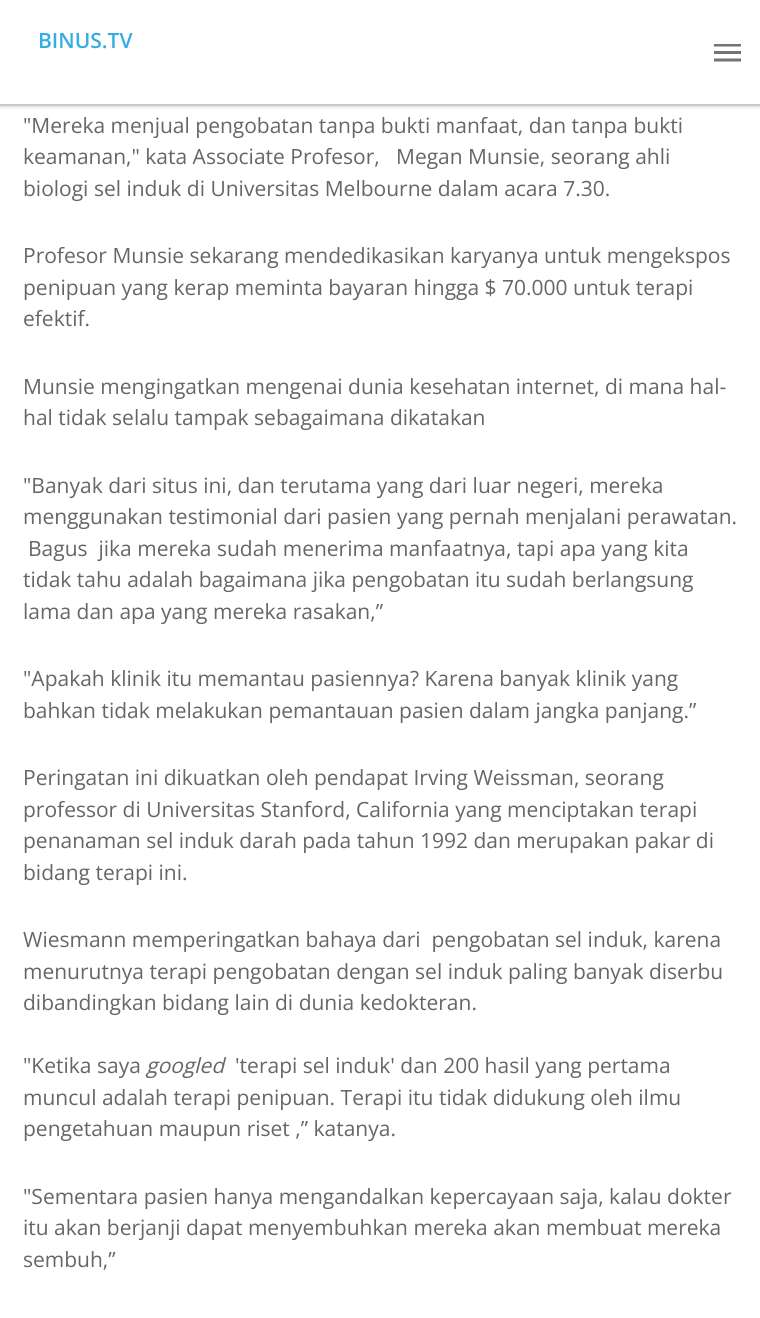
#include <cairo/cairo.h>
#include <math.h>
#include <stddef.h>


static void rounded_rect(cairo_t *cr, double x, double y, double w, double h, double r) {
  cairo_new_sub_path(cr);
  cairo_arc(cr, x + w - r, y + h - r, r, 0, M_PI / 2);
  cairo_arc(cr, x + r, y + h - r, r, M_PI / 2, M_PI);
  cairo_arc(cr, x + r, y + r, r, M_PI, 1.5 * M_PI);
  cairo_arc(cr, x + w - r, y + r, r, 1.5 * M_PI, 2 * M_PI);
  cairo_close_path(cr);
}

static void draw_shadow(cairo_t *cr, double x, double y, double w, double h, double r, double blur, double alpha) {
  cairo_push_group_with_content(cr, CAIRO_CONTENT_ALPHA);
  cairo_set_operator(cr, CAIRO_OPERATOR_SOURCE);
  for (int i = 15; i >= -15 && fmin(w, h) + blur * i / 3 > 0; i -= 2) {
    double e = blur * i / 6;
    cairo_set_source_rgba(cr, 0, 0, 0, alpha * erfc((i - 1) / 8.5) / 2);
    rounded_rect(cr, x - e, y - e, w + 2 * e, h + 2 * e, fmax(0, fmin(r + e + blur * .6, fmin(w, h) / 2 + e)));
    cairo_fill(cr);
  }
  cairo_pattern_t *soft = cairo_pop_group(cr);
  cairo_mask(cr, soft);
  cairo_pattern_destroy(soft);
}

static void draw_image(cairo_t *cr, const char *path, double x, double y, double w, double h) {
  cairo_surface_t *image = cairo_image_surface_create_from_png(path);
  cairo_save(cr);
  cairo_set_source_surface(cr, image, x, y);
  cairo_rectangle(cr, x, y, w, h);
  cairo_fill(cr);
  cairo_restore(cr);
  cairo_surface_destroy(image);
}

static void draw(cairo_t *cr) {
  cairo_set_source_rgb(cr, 1, 1, 1);
  cairo_paint(cr);
  cairo_set_source_rgb(cr, 216 / 255.0, 216 / 255.0, 216 / 255.0);
  draw_shadow(cr, 0, 2, 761, 105, 0, 1.5, 1);
  cairo_set_source_rgb(cr, 1, 1, 1);
  cairo_rectangle(cr, 0, 0, 760, 104);
  cairo_fill(cr);
  cairo_set_source_rgb(cr, 201 / 255.0, 201 / 255.0, 201 / 255.0);
  cairo_rectangle(cr, 0, 104, 760, 2);
  cairo_fill(cr);
  draw_image(cr, "images/1.png", 714, 44, 27, 18);
  cairo_select_font_face(cr, "Open Sans SemiBold", CAIRO_FONT_SLANT_NORMAL, CAIRO_FONT_WEIGHT_NORMAL);
  cairo_set_font_size(cr, 21);
  cairo_set_source_rgb(cr, 52 / 255.0, 174 / 255.0, 226 / 255.0);
  cairo_move_to(cr, 38, 48);
  cairo_show_text(cr, "BINUS.TV");
  cairo_select_font_face(cr, "Open Sans", CAIRO_FONT_SLANT_NORMAL, CAIRO_FONT_WEIGHT_NORMAL);
  cairo_set_source_rgb(cr, 102 / 255.0, 102 / 255.0, 102 / 255.0);
  cairo_move_to(cr, 23, 133);
  cairo_show_text(cr, "\"Mereka menjual pengobatan tanpa bukti manfaat, dan tanpa bukti");
  cairo_move_to(cr, 23, 164);
  cairo_show_text(cr, "keamanan,\" kata Associate Profesor,   Megan Munsie, seorang ahli");
  cairo_move_to(cr, 23, 196);
  cairo_show_text(cr, "biologi sel induk di Universitas Melbourne dalam acara 7.30.");
  cairo_move_to(cr, 23, 263);
  cairo_show_text(cr, "Profesor Munsie sekarang mendedikasikan karyanya untuk mengekspos");
  cairo_move_to(cr, 23, 295);
  cairo_show_text(cr, "penipuan yang kerap meminta bayaran hingga $ 70.000 untuk terapi");
  cairo_move_to(cr, 23, 326);
  cairo_show_text(cr, "efektif.");
  cairo_move_to(cr, 23, 394);
  cairo_show_text(cr, "Munsie mengingatkan mengenai dunia kesehatan internet, di mana hal-");
  cairo_move_to(cr, 23, 425);
  cairo_show_text(cr, "hal tidak selalu tampak sebagaimana dikatakan");
  cairo_move_to(cr, 23, 493);
  cairo_show_text(cr, "\"Banyak dari situs ini, dan terutama yang dari luar negeri, mereka");
  cairo_move_to(cr, 23, 524);
  cairo_show_text(cr, "menggunakan testimonial dari pasien yang pernah menjalani perawatan.");
  cairo_move_to(cr, 28, 556);
  cairo_show_text(cr, "Bagus  jika mereka sudah menerima manfaatnya, tapi apa yang kita");
  cairo_move_to(cr, 23, 587);
  cairo_show_text(cr, "tidak tahu adalah bagaimana jika pengobatan itu sudah berlangsung");
  cairo_move_to(cr, 23, 619);
  cairo_show_text(cr, "lama dan apa yang mereka rasakan,”");
  cairo_move_to(cr, 23, 686);
  cairo_show_text(cr, "\"Apakah klinik itu memantau pasiennya? Karena banyak klinik yang");
  cairo_move_to(cr, 23, 718);
  cairo_show_text(cr, "bahkan tidak melakukan pemantauan pasien dalam jangka panjang.”");
  cairo_move_to(cr, 23, 785);
  cairo_show_text(cr, "Peringatan ini dikuatkan oleh pendapat Irving Weissman, seorang");
  cairo_move_to(cr, 23, 817);
  cairo_show_text(cr, "professor di Universitas Stanford, California yang menciptakan terapi");
  cairo_move_to(cr, 23, 848);
  cairo_show_text(cr, "penanaman sel induk darah pada tahun 1992 dan merupakan pakar di");
  cairo_move_to(cr, 23, 880);
  cairo_show_text(cr, "bidang terapi ini.");
  cairo_move_to(cr, 23, 947);
  cairo_show_text(cr, "Wiesmann memperingatkan bahaya dari  pengobatan sel induk, karena");
  cairo_move_to(cr, 23, 979);
  cairo_show_text(cr, "menurutnya terapi pengobatan dengan sel induk paling banyak diserbu");
  cairo_move_to(cr, 23, 1010);
  cairo_show_text(cr, "dibandingkan bidang lain di dunia kedokteran.");
  cairo_move_to(cr, 23, 1073);
  cairo_show_text(cr, "\"Ketika saya");
  cairo_select_font_face(cr, "Open Sans", CAIRO_FONT_SLANT_ITALIC, CAIRO_FONT_WEIGHT_NORMAL);
  cairo_move_to(cr, 146, 1073);
  cairo_show_text(cr, "googled");
  cairo_select_font_face(cr, "Open Sans", CAIRO_FONT_SLANT_NORMAL, CAIRO_FONT_WEIGHT_NORMAL);
  cairo_move_to(cr, 235, 1073);
  cairo_show_text(cr, "'terapi sel induk' dan 200 hasil yang pertama");
  cairo_move_to(cr, 23, 1105);
  cairo_show_text(cr, "muncul adalah terapi penipuan. Terapi itu tidak didukung oleh ilmu");
  cairo_move_to(cr, 23, 1136);
  cairo_show_text(cr, "pengetahuan maupun riset ,” katanya.");
  cairo_move_to(cr, 23, 1204);
  cairo_show_text(cr, "\"Sementara pasien hanya mengandalkan kepercayaan saja, kalau dokter");
  cairo_move_to(cr, 23, 1235);
  cairo_show_text(cr, "itu akan berjanji dapat menyembuhkan mereka akan membuat mereka");
  cairo_move_to(cr, 23, 1267);
  cairo_show_text(cr, "sembuh,”");
}

int main(void) {
  cairo_surface_t *surface = cairo_image_surface_create(CAIRO_FORMAT_RGB24, 760, 1318);
  cairo_t *cr = cairo_create(surface);
  cairo_font_options_t *options = cairo_font_options_create();
  cairo_font_options_set_hint_metrics(options, CAIRO_HINT_METRICS_OFF);
  cairo_font_options_set_hint_style(options, CAIRO_HINT_STYLE_NONE);
  cairo_set_font_options(cr, options);
  cairo_set_miter_limit(cr, 4);
  draw(cr);
  cairo_surface_write_to_png(surface, "out.png");
  cairo_font_options_destroy(options);
  cairo_destroy(cr);
  cairo_surface_destroy(surface);
  return 0;
}
